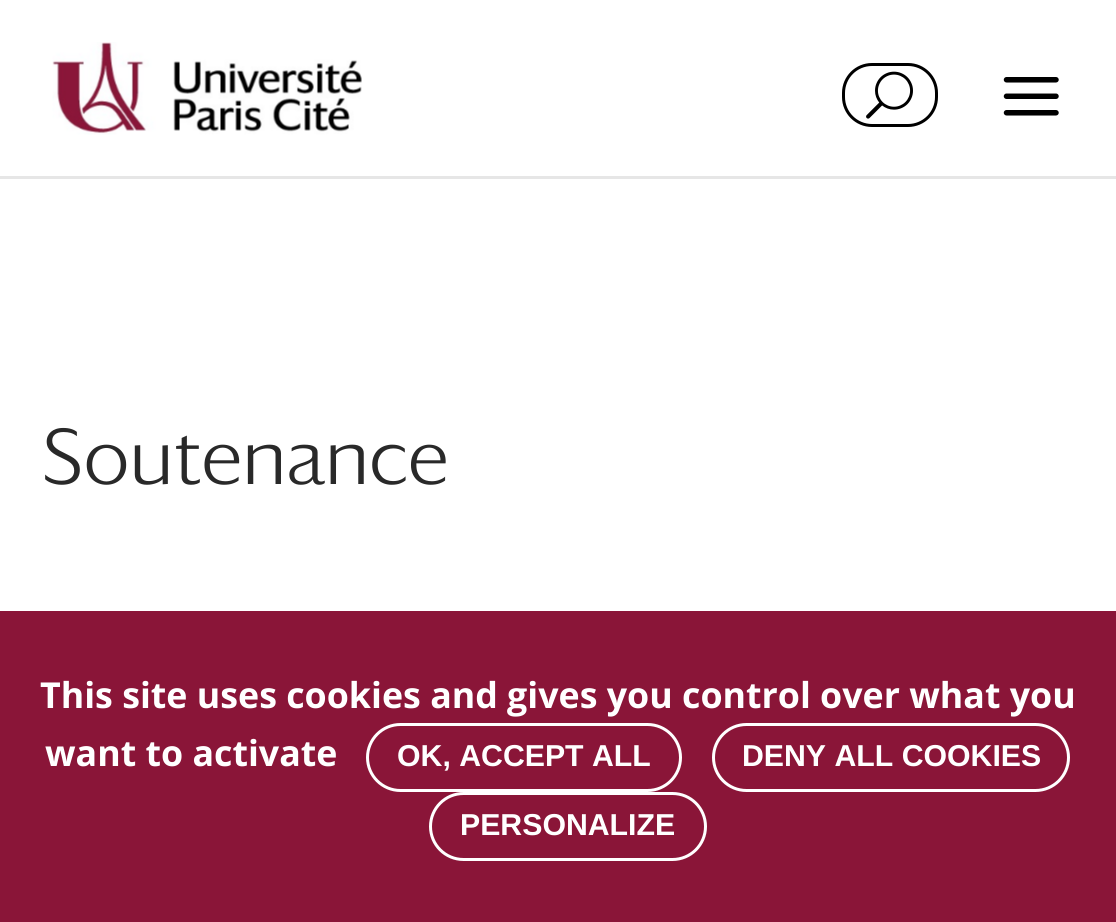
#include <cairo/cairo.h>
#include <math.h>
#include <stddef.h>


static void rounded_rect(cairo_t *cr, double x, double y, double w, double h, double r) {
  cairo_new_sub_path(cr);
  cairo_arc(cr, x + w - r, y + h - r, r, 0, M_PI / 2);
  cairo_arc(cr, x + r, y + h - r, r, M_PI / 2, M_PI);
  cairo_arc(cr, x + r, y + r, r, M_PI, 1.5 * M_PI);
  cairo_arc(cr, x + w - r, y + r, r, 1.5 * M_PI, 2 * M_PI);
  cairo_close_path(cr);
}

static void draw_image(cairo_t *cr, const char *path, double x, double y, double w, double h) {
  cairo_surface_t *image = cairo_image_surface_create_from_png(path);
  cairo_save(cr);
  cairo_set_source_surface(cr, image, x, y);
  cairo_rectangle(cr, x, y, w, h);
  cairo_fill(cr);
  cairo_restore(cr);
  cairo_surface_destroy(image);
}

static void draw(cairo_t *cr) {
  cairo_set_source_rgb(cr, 1, 1, 1);
  cairo_paint(cr);
  cairo_set_source_rgb(cr, 230 / 255.0, 230 / 255.0, 230 / 255.0);
  cairo_new_path(cr);
  cairo_move_to(cr, 0, 176);
  cairo_line_to(cr, 0, 179);
  cairo_line_to(cr, 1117, 179);
  cairo_line_to(cr, 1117, 3);
  cairo_line_to(cr, 1116, 3);
  cairo_line_to(cr, 1116, 176);
  cairo_close_path(cr);
  cairo_fill(cr);
  draw_image(cr, "images/1.png", 52, 42, 310, 93);
  rounded_rect(cr, 843.5, 64.5, 93, 61, 28.5);
  cairo_set_source_rgb(cr, 0, 0, 0);
  cairo_set_line_width(cr, 3);
  cairo_stroke(cr);
  draw_image(cr, "images/2.png", 866, 71, 47, 48);
  draw_image(cr, "images/3.png", 1003, 77, 56, 39);
  cairo_set_source_rgb(cr, 138 / 255.0, 21 / 255.0, 56 / 255.0);
  cairo_rectangle(cr, 0, 611, 1116, 311);
  cairo_fill(cr);
  rounded_rect(cr, 367.5, 724.5, 313, 66, 33);
  cairo_set_source_rgb(cr, 1, 1, 1);
  cairo_stroke(cr);
  rounded_rect(cr, 713.5, 724.5, 355, 66, 33);
  cairo_stroke(cr);
  rounded_rect(cr, 430.5, 793.5, 275, 66, 33);
  cairo_stroke(cr);
  cairo_select_font_face(cr, "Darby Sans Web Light", CAIRO_FONT_SLANT_NORMAL, CAIRO_FONT_WEIGHT_NORMAL);
  cairo_set_font_size(cr, 77);
  cairo_set_source_rgb(cr, 41 / 255.0, 41 / 255.0, 41 / 255.0);
  cairo_move_to(cr, 41, 484);
  cairo_show_text(cr, "Soutenance");
  cairo_select_font_face(cr, "Open Sans", CAIRO_FONT_SLANT_NORMAL, CAIRO_FONT_WEIGHT_BOLD);
  cairo_set_font_size(cr, 35.75);
  cairo_set_source_rgb(cr, 1, 1, 1);
  cairo_move_to(cr, 40, 708);
  cairo_show_text(cr, "This site uses cookies and gives you control over what you");
  cairo_move_to(cr, 45, 766);
  cairo_show_text(cr, "want to activate");
  cairo_select_font_face(cr, "Liberation Sans", CAIRO_FONT_SLANT_NORMAL, CAIRO_FONT_WEIGHT_BOLD);
  cairo_set_font_size(cr, 30.25);
  cairo_move_to(cr, 397, 766);
  cairo_show_text(cr, "OK, ACCEPT ALL");
  cairo_move_to(cr, 742, 766);
  cairo_show_text(cr, "DENY ALL COOKIES");
  cairo_move_to(cr, 460, 835);
  cairo_show_text(cr, "PERSONALIZE");
}

int main(void) {
  cairo_surface_t *surface = cairo_image_surface_create(CAIRO_FORMAT_RGB24, 1116, 922);
  cairo_t *cr = cairo_create(surface);
  cairo_font_options_t *options = cairo_font_options_create();
  cairo_font_options_set_hint_metrics(options, CAIRO_HINT_METRICS_OFF);
  cairo_font_options_set_hint_style(options, CAIRO_HINT_STYLE_NONE);
  cairo_set_font_options(cr, options);
  cairo_set_miter_limit(cr, 4);
  draw(cr);
  cairo_surface_write_to_png(surface, "out.png");
  cairo_font_options_destroy(options);
  cairo_destroy(cr);
  cairo_surface_destroy(surface);
  return 0;
}
